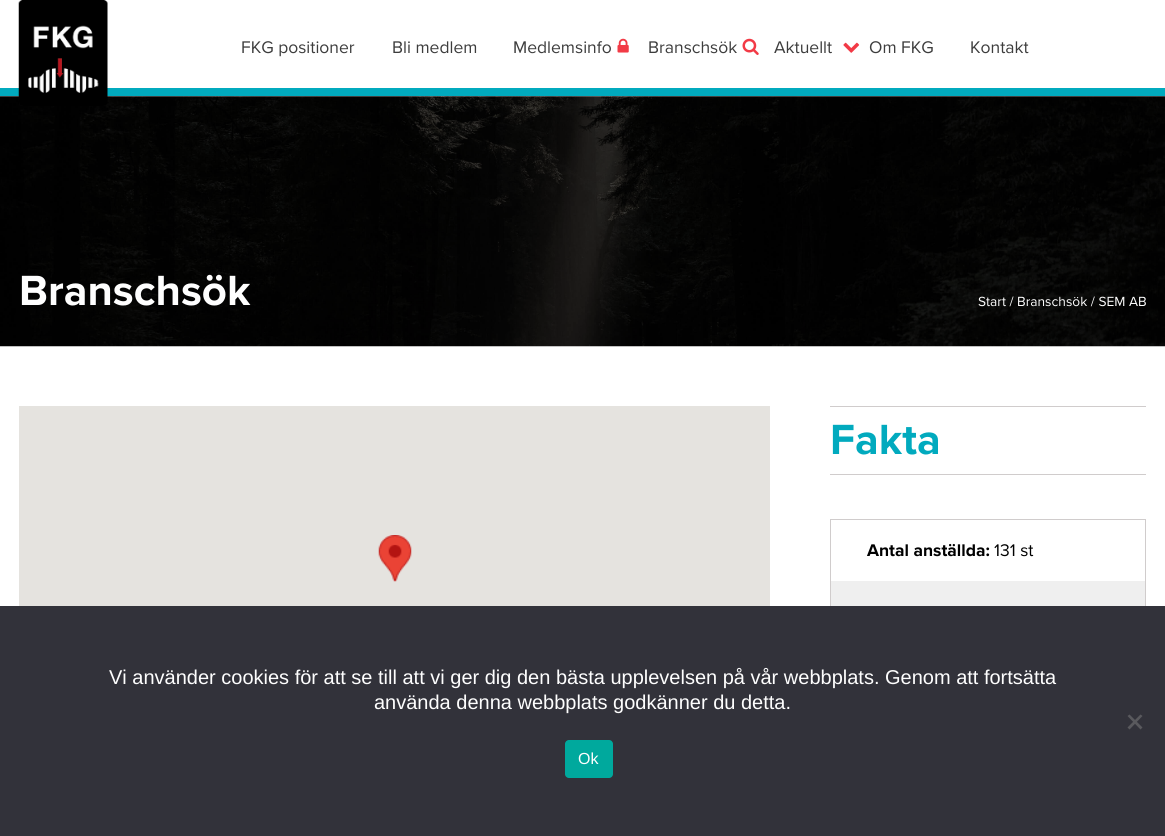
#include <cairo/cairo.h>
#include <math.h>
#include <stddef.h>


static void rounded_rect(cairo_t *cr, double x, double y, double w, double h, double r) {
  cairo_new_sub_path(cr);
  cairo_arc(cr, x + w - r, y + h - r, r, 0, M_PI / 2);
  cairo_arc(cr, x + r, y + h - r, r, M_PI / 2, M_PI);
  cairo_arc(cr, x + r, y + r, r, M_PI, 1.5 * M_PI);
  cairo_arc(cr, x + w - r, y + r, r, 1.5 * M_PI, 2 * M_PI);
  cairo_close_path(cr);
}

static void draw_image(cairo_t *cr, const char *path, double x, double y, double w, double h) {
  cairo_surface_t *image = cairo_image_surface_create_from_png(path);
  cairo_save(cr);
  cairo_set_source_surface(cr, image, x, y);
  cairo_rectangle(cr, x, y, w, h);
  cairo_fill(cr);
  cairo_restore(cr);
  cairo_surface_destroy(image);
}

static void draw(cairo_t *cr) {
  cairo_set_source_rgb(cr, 1, 1, 1);
  cairo_paint(cr);
  cairo_set_source_rgb(cr, 1 / 255.0, 170 / 255.0, 190 / 255.0);
  cairo_rectangle(cr, 0, 88, 1165, 8);
  cairo_fill(cr);
  draw_image(cr, "images/5.png", 0, 96, 1165, 251);
  draw_image(cr, "images/1.png", 18, 0, 90, 106);
  draw_image(cr, "images/2.png", 617, 38, 12, 15);
  draw_image(cr, "images/3.png", 742, 38, 17, 17);
  draw_image(cr, "images/4.png", 843, 42, 17, 11);
  cairo_set_source_rgb(cr, 229 / 255.0, 227 / 255.0, 223 / 255.0);
  cairo_rectangle(cr, 19, 406, 751, 200);
  cairo_fill(cr);
  draw_image(cr, "images/6.png", 378, 535, 34, 47);
  cairo_set_source_rgb(cr, 208 / 255.0, 204 / 255.0, 204 / 255.0);
  cairo_rectangle(cr, 830, 406, 316, 1);
  cairo_fill(cr);
  cairo_rectangle(cr, 830, 474, 316, 1);
  cairo_fill(cr);
  cairo_rectangle(cr, 830.5, 519.5, 315, 124);
  cairo_set_line_width(cr, 1);
  cairo_stroke(cr);
  cairo_set_source_rgb(cr, 239 / 255.0, 239 / 255.0, 239 / 255.0);
  cairo_rectangle(cr, 831, 581, 314, 25);
  cairo_fill(cr);
  cairo_set_source_rgb(cr, 50 / 255.0, 50 / 255.0, 58 / 255.0);
  cairo_rectangle(cr, 0, 606, 1165, 230);
  cairo_fill(cr);
  cairo_set_source_rgb(cr, 89 / 255.0, 89 / 255.0, 93 / 255.0);
  cairo_new_path(cr);
  cairo_move_to(cr, 1140.5, 714.5);
  cairo_line_to(cr, 1142.5, 716);
  cairo_line_to(cr, 1129.5, 729.5);
  cairo_line_to(cr, 1127.5, 727.5);
  cairo_close_path(cr);
  cairo_fill(cr);
  cairo_new_path(cr);
  cairo_move_to(cr, 1127.5, 716);
  cairo_line_to(cr, 1129.5, 714.5);
  cairo_line_to(cr, 1142.5, 727.5);
  cairo_line_to(cr, 1140.5, 729.5);
  cairo_close_path(cr);
  cairo_fill(cr);
  cairo_set_source_rgb(cr, 0, 169 / 255.0, 157 / 255.0);
  rounded_rect(cr, 565, 740, 48, 38, 4);
  cairo_fill(cr);
  cairo_select_font_face(cr, "Proxima Nova", CAIRO_FONT_SLANT_NORMAL, CAIRO_FONT_WEIGHT_NORMAL);
  cairo_set_font_size(cr, 17.5);
  cairo_set_source_rgb(cr, 61 / 255.0, 61 / 255.0, 61 / 255.0);
  cairo_move_to(cr, 241, 53);
  cairo_show_text(cr, "FKG positioner");
  cairo_move_to(cr, 392, 53);
  cairo_show_text(cr, "Bli medlem");
  cairo_move_to(cr, 513, 53);
  cairo_show_text(cr, "Medlemsinfo");
  cairo_move_to(cr, 648, 53);
  cairo_show_text(cr, "Branschsök");
  cairo_move_to(cr, 774, 53);
  cairo_show_text(cr, "Aktuellt");
  cairo_move_to(cr, 869, 53);
  cairo_show_text(cr, "Om FKG");
  cairo_move_to(cr, 970, 53);
  cairo_show_text(cr, "Kontakt");
  cairo_select_font_face(cr, "Proxima Nova", CAIRO_FONT_SLANT_NORMAL, CAIRO_FONT_WEIGHT_BOLD);
  cairo_set_font_size(cr, 43.75);
  cairo_set_source_rgb(cr, 254 / 255.0, 254 / 255.0, 254 / 255.0);
  cairo_move_to(cr, 19, 305);
  cairo_show_text(cr, "Branschsök");
  cairo_select_font_face(cr, "Proxima Nova", CAIRO_FONT_SLANT_NORMAL, CAIRO_FONT_WEIGHT_NORMAL);
  cairo_set_font_size(cr, 13.75);
  cairo_move_to(cr, 978, 306);
  cairo_show_text(cr, "Start / Branschsök / SEM AB");
  cairo_select_font_face(cr, "Proxima Nova", CAIRO_FONT_SLANT_NORMAL, CAIRO_FONT_WEIGHT_BOLD);
  cairo_set_font_size(cr, 43.75);
  cairo_set_source_rgb(cr, 1 / 255.0, 170 / 255.0, 190 / 255.0);
  cairo_move_to(cr, 830, 454);
  cairo_show_text(cr, "Fakta");
  cairo_set_font_size(cr, 17.5);
  cairo_set_source_rgb(cr, 0, 0, 0);
  cairo_move_to(cr, 867, 556);
  cairo_show_text(cr, "Antal anställda:");
  cairo_select_font_face(cr, "Proxima Nova", CAIRO_FONT_SLANT_NORMAL, CAIRO_FONT_WEIGHT_NORMAL);
  cairo_move_to(cr, 994, 556);
  cairo_show_text(cr, "131 st");
  cairo_select_font_face(cr, "Liberation Sans", CAIRO_FONT_SLANT_NORMAL, CAIRO_FONT_WEIGHT_NORMAL);
  cairo_set_font_size(cr, 20);
  cairo_set_source_rgb(cr, 254 / 255.0, 254 / 255.0, 254 / 255.0);
  cairo_move_to(cr, 109, 684);
  cairo_show_text(cr, "Vi använder cookies för att se till att vi ger dig den bästa upplevelsen på vår webbplats. Genom att fortsätta");
  cairo_move_to(cr, 374, 709);
  cairo_show_text(cr, "använda denna webbplats godkänner du detta.");
  cairo_set_font_size(cr, 16);
  cairo_move_to(cr, 578, 764);
  cairo_show_text(cr, "Ok");
}

int main(void) {
  cairo_surface_t *surface = cairo_image_surface_create(CAIRO_FORMAT_RGB24, 1165, 836);
  cairo_t *cr = cairo_create(surface);
  cairo_font_options_t *options = cairo_font_options_create();
  cairo_font_options_set_hint_metrics(options, CAIRO_HINT_METRICS_OFF);
  cairo_font_options_set_hint_style(options, CAIRO_HINT_STYLE_NONE);
  cairo_set_font_options(cr, options);
  cairo_set_miter_limit(cr, 4);
  draw(cr);
  cairo_surface_write_to_png(surface, "out.png");
  cairo_font_options_destroy(options);
  cairo_destroy(cr);
  cairo_surface_destroy(surface);
  return 0;
}
